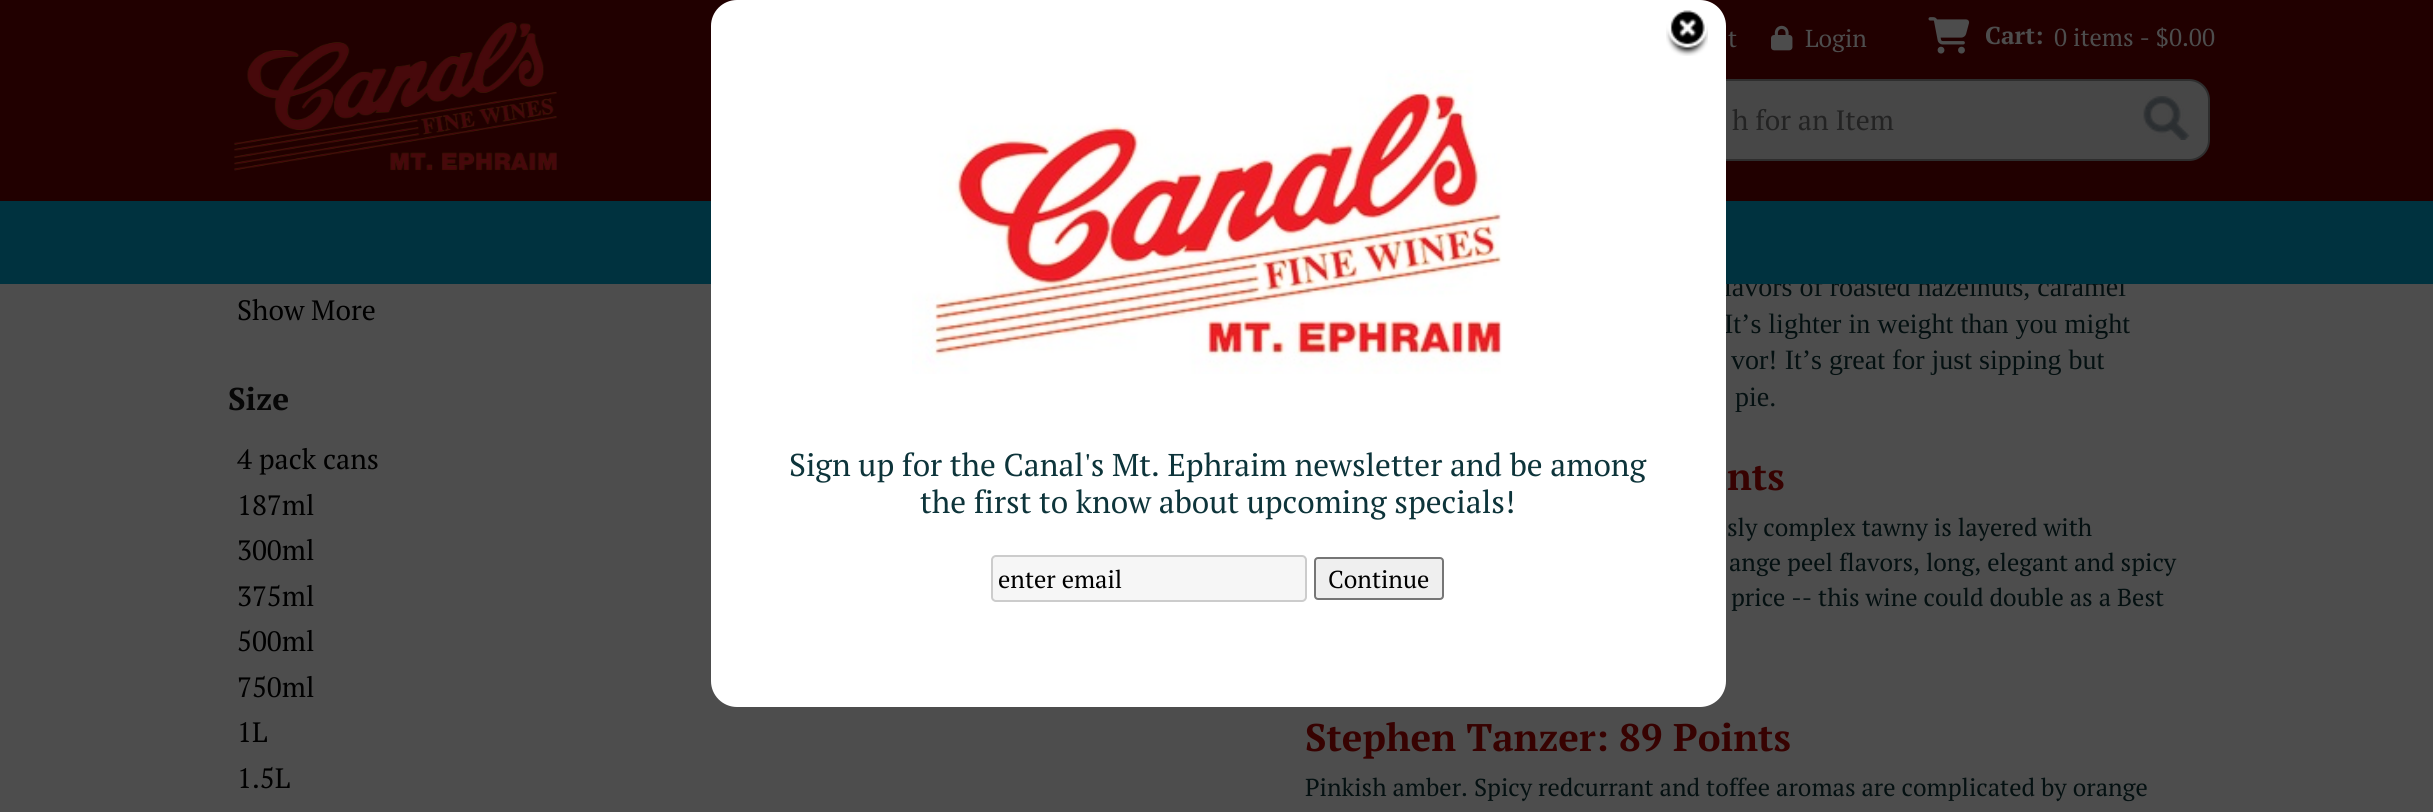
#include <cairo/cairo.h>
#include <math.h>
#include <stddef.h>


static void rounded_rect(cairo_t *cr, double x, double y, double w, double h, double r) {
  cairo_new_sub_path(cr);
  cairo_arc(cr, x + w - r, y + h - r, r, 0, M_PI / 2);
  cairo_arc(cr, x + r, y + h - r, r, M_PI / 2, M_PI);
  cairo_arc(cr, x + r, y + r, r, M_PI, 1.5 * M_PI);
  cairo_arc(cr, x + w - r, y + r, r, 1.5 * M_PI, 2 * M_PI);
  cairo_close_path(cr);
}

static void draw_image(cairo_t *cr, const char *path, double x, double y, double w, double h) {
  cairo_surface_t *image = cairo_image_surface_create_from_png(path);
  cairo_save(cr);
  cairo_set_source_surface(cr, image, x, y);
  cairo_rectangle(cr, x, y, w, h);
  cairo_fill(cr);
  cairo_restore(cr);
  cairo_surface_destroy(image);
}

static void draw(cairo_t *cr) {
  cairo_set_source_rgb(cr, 77 / 255.0, 77 / 255.0, 77 / 255.0);
  cairo_paint(cr);
  cairo_set_source_rgb(cr, 33 / 255.0, 0, 0);
  cairo_rectangle(cr, 0, 0, 2433, 201);
  cairo_fill(cr);
  draw_image(cr, "images/1.png", 234, 22, 323, 149);
  draw_image(cr, "images/2.png", 1771, 25, 22, 26);
  draw_image(cr, "images/3.png", 1928, 17, 42, 37);
  cairo_set_source_rgb(cr, 71 / 255.0, 71 / 255.0, 71 / 255.0);
  rounded_rect(cr, 1648, 80, 561, 80, 20);
  cairo_fill_preserve(cr);
  cairo_set_source_rgb(cr, 46 / 255.0, 46 / 255.0, 46 / 255.0);
  cairo_stroke(cr);
  draw_image(cr, "images/4.png", 2143, 96, 47, 44);
  cairo_select_font_face(cr, "PT Serif", CAIRO_FONT_SLANT_NORMAL, CAIRO_FONT_WEIGHT_NORMAL);
  cairo_set_font_size(cr, 24.5);
  cairo_set_source_rgb(cr, 77 / 255.0, 77 / 255.0, 77 / 255.0);
  cairo_move_to(cr, 1728, 47);
  cairo_show_text(cr, "t");
  cairo_move_to(cr, 1805, 47);
  cairo_show_text(cr, "Login");
  cairo_select_font_face(cr, "PT Serif", CAIRO_FONT_SLANT_NORMAL, CAIRO_FONT_WEIGHT_BOLD);
  cairo_move_to(cr, 1985, 44);
  cairo_show_text(cr, "Cart:");
  cairo_select_font_face(cr, "PT Serif", CAIRO_FONT_SLANT_NORMAL, CAIRO_FONT_WEIGHT_NORMAL);
  cairo_move_to(cr, 2054, 46);
  cairo_show_text(cr, "0 items - $0.00");
  cairo_set_font_size(cr, 28);
  cairo_set_source_rgb(cr, 35 / 255.0, 35 / 255.0, 35 / 255.0);
  cairo_move_to(cr, 1732, 130);
  cairo_show_text(cr, "h for an Item");
  cairo_set_source_rgb(cr, 0, 0, 0);
  cairo_move_to(cr, 237, 320);
  cairo_show_text(cr, "Show More");
  cairo_select_font_face(cr, "PT Serif", CAIRO_FONT_SLANT_NORMAL, CAIRO_FONT_WEIGHT_BOLD);
  cairo_set_font_size(cr, 31.5);
  cairo_set_source_rgb(cr, 6 / 255.0, 6 / 255.0, 6 / 255.0);
  cairo_move_to(cr, 228, 410);
  cairo_show_text(cr, "Size");
  cairo_select_font_face(cr, "PT Serif", CAIRO_FONT_SLANT_NORMAL, CAIRO_FONT_WEIGHT_NORMAL);
  cairo_set_font_size(cr, 28);
  cairo_set_source_rgb(cr, 0, 0, 0);
  cairo_move_to(cr, 237, 469);
  cairo_show_text(cr, "4 pack cans");
  cairo_move_to(cr, 237, 515);
  cairo_show_text(cr, "187ml");
  cairo_move_to(cr, 237, 560);
  cairo_show_text(cr, "300ml");
  cairo_move_to(cr, 237, 606);
  cairo_show_text(cr, "375ml");
  cairo_move_to(cr, 237, 651);
  cairo_show_text(cr, "500ml");
  cairo_move_to(cr, 237, 697);
  cairo_show_text(cr, "750ml");
  cairo_move_to(cr, 237, 742);
  cairo_show_text(cr, "1L");
  cairo_move_to(cr, 237, 788);
  cairo_show_text(cr, "1.5L");
  cairo_select_font_face(cr, "Liberation Serif", CAIRO_FONT_SLANT_NORMAL, CAIRO_FONT_WEIGHT_NORMAL);
  cairo_set_source_rgb(cr, 4 / 255.0, 16 / 255.0, 17 / 255.0);
  cairo_move_to(cr, 1724, 296);
  cairo_show_text(cr, "lavors of roasted hazelnuts, caramel");
  cairo_set_source_rgb(cr, 0, 50 / 255.0, 63 / 255.0);
  cairo_rectangle(cr, 0, 201, 2433, 83);
  cairo_fill(cr);
  cairo_set_source_rgb(cr, 4 / 255.0, 16 / 255.0, 17 / 255.0);
  cairo_move_to(cr, 1724, 333);
  cairo_show_text(cr, "It’s lighter in weight than you might");
  cairo_move_to(cr, 1731, 369);
  cairo_show_text(cr, "vor! It’s great for just sipping but");
  cairo_move_to(cr, 1735, 406);
  cairo_show_text(cr, "pie.");
  cairo_select_font_face(cr, "PT Serif", CAIRO_FONT_SLANT_NORMAL, CAIRO_FONT_WEIGHT_BOLD);
  cairo_set_font_size(cr, 38.5);
  cairo_set_source_rgb(cr, 55 / 255.0, 2 / 255.0, 1 / 255.0);
  cairo_move_to(cr, 1727, 490);
  cairo_show_text(cr, "nts");
  cairo_select_font_face(cr, "PT Serif", CAIRO_FONT_SLANT_NORMAL, CAIRO_FONT_WEIGHT_NORMAL);
  cairo_set_font_size(cr, 24.5);
  cairo_set_source_rgb(cr, 4 / 255.0, 16 / 255.0, 17 / 255.0);
  cairo_move_to(cr, 1727, 536);
  cairo_show_text(cr, "sly complex tawny is layered with");
  cairo_move_to(cr, 1729, 571);
  cairo_show_text(cr, "ange peel flavors, long, elegant and spicy");
  cairo_move_to(cr, 1731, 606);
  cairo_show_text(cr, "price -- this wine could double as a Best");
  cairo_select_font_face(cr, "PT Serif", CAIRO_FONT_SLANT_NORMAL, CAIRO_FONT_WEIGHT_BOLD);
  cairo_set_font_size(cr, 38.5);
  cairo_set_source_rgb(cr, 55 / 255.0, 2 / 255.0, 1 / 255.0);
  cairo_move_to(cr, 1305, 751);
  cairo_show_text(cr, "Stephen Tanzer: 89 Points");
  cairo_select_font_face(cr, "PT Serif", CAIRO_FONT_SLANT_NORMAL, CAIRO_FONT_WEIGHT_NORMAL);
  cairo_set_font_size(cr, 24.5);
  cairo_set_source_rgb(cr, 4 / 255.0, 16 / 255.0, 17 / 255.0);
  cairo_move_to(cr, 1305, 796);
  cairo_show_text(cr, "Pinkish amber. Spicy redcurrant and toffee aromas are complicated by orange");
  cairo_set_source_rgb(cr, 1, 1, 1);
  rounded_rect(cr, 711, 0, 1015, 707, 26);
  cairo_fill(cr);
  draw_image(cr, "images/5.png", 1666, 10, 42, 46);
  draw_image(cr, "images/6.png", 912, 70, 590, 304);
  cairo_set_font_size(cr, 31.5);
  cairo_set_source_rgb(cr, 13 / 255.0, 52 / 255.0, 58 / 255.0);
  cairo_move_to(cr, 789, 476);
  cairo_show_text(cr, "Sign up for the Canal's Mt. Ephraim newsletter and be among");
  cairo_move_to(cr, 920, 513);
  cairo_show_text(cr, "the first to know about upcoming specials!");
  cairo_set_source_rgb(cr, 246 / 255.0, 246 / 255.0, 246 / 255.0);
  rounded_rect(cr, 992, 556, 314, 45, 4);
  cairo_fill_preserve(cr);
  cairo_set_source_rgb(cr, 204 / 255.0, 204 / 255.0, 204 / 255.0);
  cairo_stroke(cr);
  cairo_set_font_size(cr, 24.5);
  cairo_set_source_rgb(cr, 0, 0, 0);
  cairo_move_to(cr, 998, 588);
  cairo_show_text(cr, "enter email");
  cairo_set_source_rgb(cr, 239 / 255.0, 239 / 255.0, 239 / 255.0);
  rounded_rect(cr, 1315, 558, 128, 41, 3);
  cairo_fill_preserve(cr);
  cairo_set_source_rgb(cr, 118 / 255.0, 118 / 255.0, 118 / 255.0);
  cairo_stroke(cr);
  cairo_set_source_rgb(cr, 0, 0, 0);
  cairo_move_to(cr, 1328, 588);
  cairo_show_text(cr, "Continue");
}

int main(void) {
  cairo_surface_t *surface = cairo_image_surface_create(CAIRO_FORMAT_RGB24, 2433, 812);
  cairo_t *cr = cairo_create(surface);
  cairo_font_options_t *options = cairo_font_options_create();
  cairo_font_options_set_hint_metrics(options, CAIRO_HINT_METRICS_OFF);
  cairo_font_options_set_hint_style(options, CAIRO_HINT_STYLE_NONE);
  cairo_set_font_options(cr, options);
  cairo_set_miter_limit(cr, 4);
  draw(cr);
  cairo_surface_write_to_png(surface, "out.png");
  cairo_font_options_destroy(options);
  cairo_destroy(cr);
  cairo_surface_destroy(surface);
  return 0;
}
